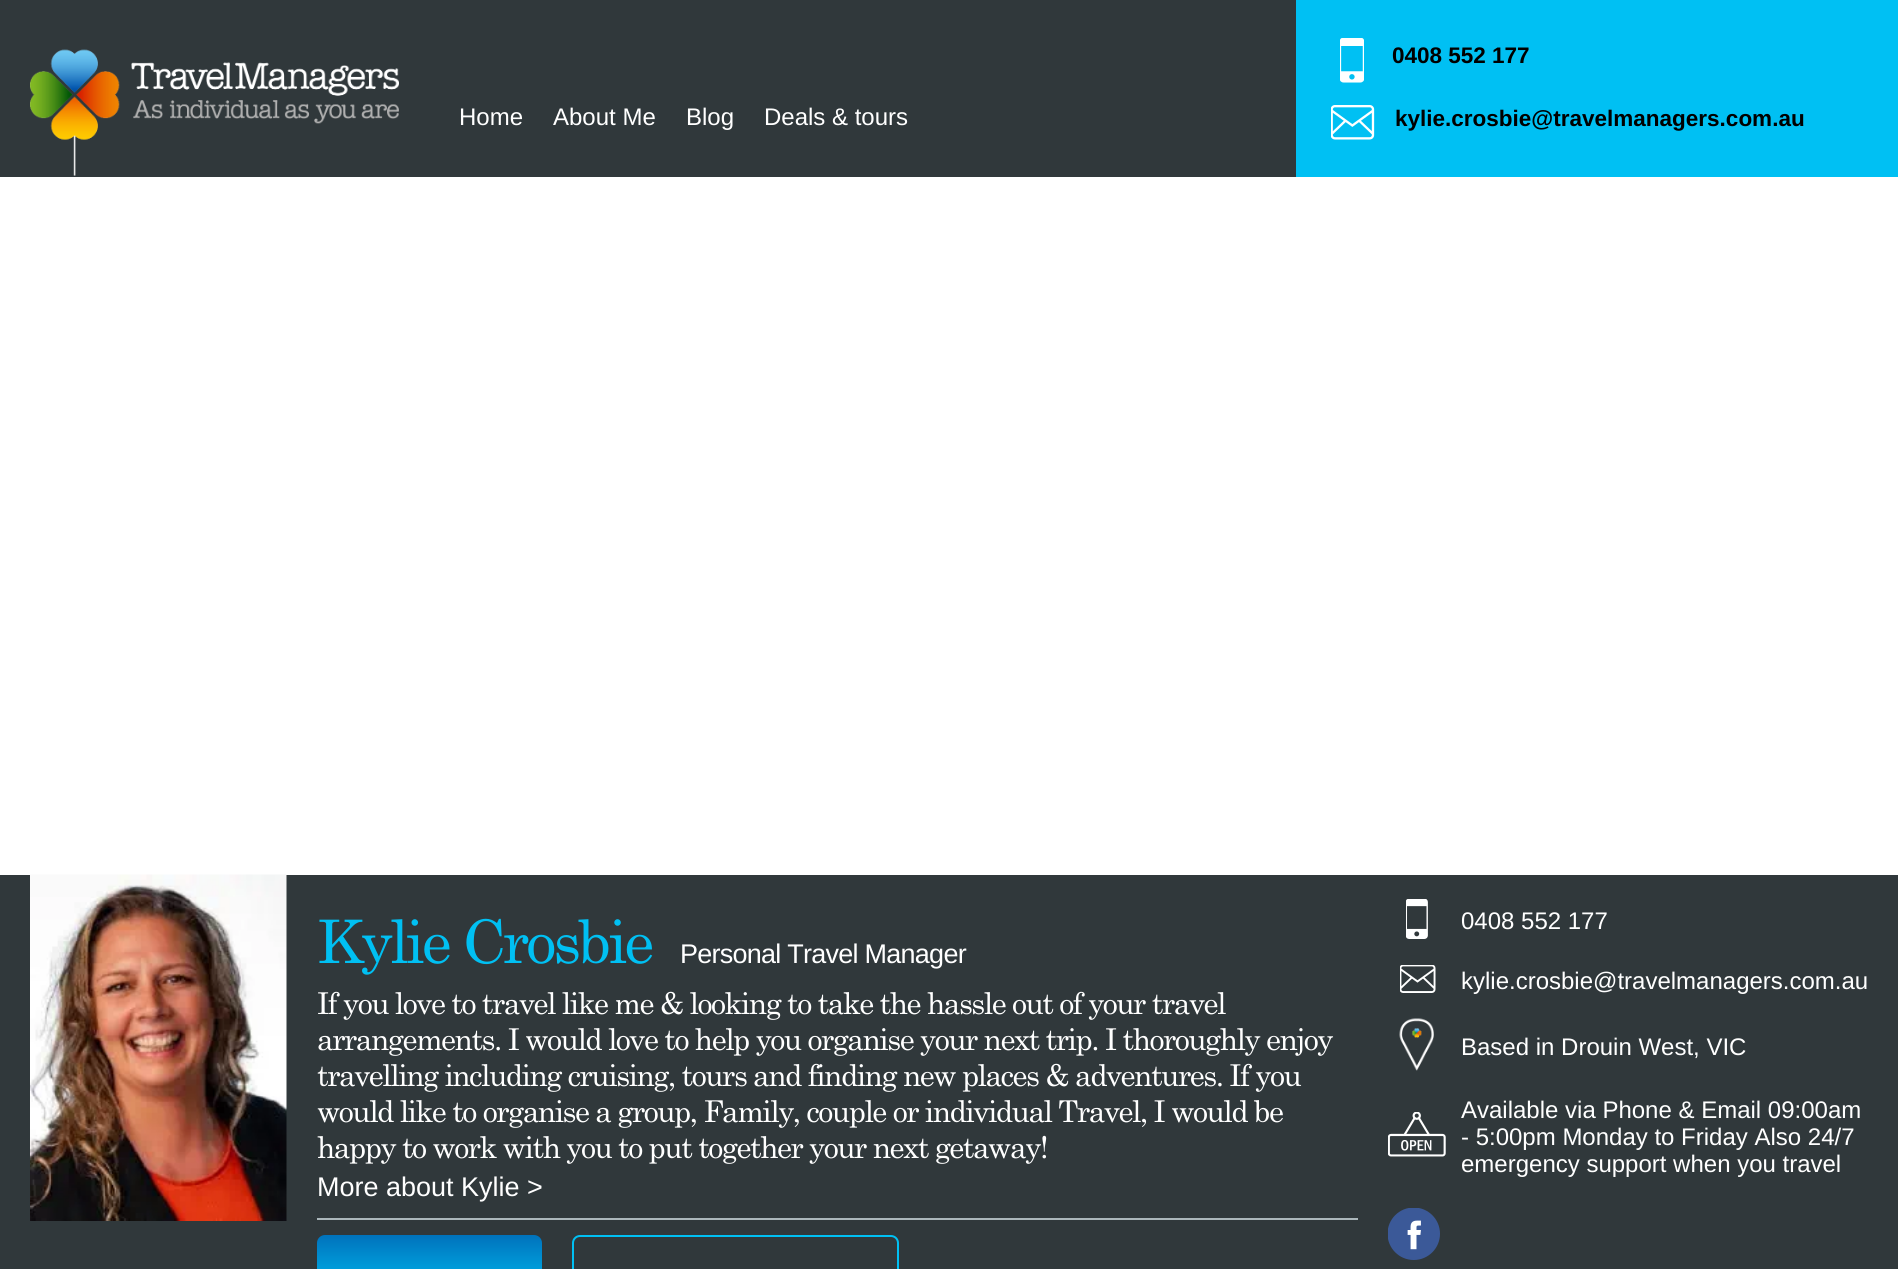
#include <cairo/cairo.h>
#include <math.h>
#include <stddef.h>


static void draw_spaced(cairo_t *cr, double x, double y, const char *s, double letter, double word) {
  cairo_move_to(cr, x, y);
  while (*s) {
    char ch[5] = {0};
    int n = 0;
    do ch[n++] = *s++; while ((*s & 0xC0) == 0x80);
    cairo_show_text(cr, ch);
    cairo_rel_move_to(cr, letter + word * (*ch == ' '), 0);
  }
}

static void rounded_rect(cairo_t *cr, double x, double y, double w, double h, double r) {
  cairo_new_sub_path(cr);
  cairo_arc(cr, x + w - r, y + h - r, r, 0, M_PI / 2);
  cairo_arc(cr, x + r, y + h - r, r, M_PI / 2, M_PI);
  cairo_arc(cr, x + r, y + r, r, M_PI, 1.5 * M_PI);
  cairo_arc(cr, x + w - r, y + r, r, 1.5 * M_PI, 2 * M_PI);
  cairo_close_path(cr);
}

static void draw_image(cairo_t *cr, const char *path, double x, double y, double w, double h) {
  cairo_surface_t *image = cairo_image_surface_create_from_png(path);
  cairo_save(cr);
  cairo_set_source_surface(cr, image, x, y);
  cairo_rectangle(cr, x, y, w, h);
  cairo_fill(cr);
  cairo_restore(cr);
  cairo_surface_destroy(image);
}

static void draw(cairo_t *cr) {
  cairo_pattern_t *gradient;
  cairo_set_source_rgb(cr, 1, 1, 1);
  cairo_paint(cr);
  cairo_set_source_rgb(cr, 48 / 255.0, 56 / 255.0, 59 / 255.0);
  cairo_rectangle(cr, 0, 0, 1296, 177);
  cairo_fill(cr);
  draw_image(cr, "images/1.png", 30, 49, 369, 127);
  cairo_set_source_rgb(cr, 0, 192 / 255.0, 243 / 255.0);
  cairo_rectangle(cr, 1296, 0, 602, 177);
  cairo_fill(cr);
  draw_image(cr, "images/2.png", 1340, 38, 24, 45);
  draw_image(cr, "images/3.png", 1331, 105, 44, 35);
  cairo_set_source_rgb(cr, 48 / 255.0, 56 / 255.0, 59 / 255.0);
  cairo_rectangle(cr, 0, 875, 1898, 394);
  cairo_fill(cr);
  draw_image(cr, "images/4.png", 30, 874, 257, 347);
  cairo_set_source_rgb(cr, 171 / 255.0, 183 / 255.0, 187 / 255.0);
  cairo_rectangle(cr, 317, 1218, 1041, 2);
  cairo_fill(cr);
  gradient = cairo_pattern_create_linear(429, 1235, 429, 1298);
  cairo_pattern_add_color_stop_rgba(gradient, 0, 0, 114 / 255.0, 188 / 255.0, 1);
  cairo_pattern_add_color_stop_rgba(gradient, 1, 0, 192 / 255.0, 243 / 255.0, 1);
  cairo_set_source(cr, gradient);
  cairo_pattern_destroy(gradient);
  rounded_rect(cr, 317, 1235, 225, 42, 8);
  cairo_fill(cr);
  rounded_rect(cr, 573, 1236, 325, 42, 7);
  cairo_set_source_rgb(cr, 0, 192 / 255.0, 243 / 255.0);
  cairo_stroke(cr);
  draw_image(cr, "images/5.png", 1406, 899, 22, 40);
  draw_image(cr, "images/6.png", 1400, 965, 36, 28);
  draw_image(cr, "images/7.png", 1399, 1018, 35, 53);
  draw_image(cr, "images/8.png", 1388, 1112, 58, 45);
  draw_image(cr, "images/9.png", 1388, 1208, 52, 52);
  cairo_select_font_face(cr, "Liberation Sans", CAIRO_FONT_SLANT_NORMAL, CAIRO_FONT_WEIGHT_NORMAL);
  cairo_set_font_size(cr, 24);
  cairo_set_source_rgb(cr, 1, 1, 1);
  cairo_move_to(cr, 459, 125);
  cairo_show_text(cr, "Home");
  cairo_move_to(cr, 553, 125);
  cairo_show_text(cr, "About Me");
  cairo_move_to(cr, 686, 125);
  cairo_show_text(cr, "Blog");
  cairo_move_to(cr, 764, 125);
  cairo_show_text(cr, "Deals & tours");
  cairo_select_font_face(cr, "Liberation Sans", CAIRO_FONT_SLANT_NORMAL, CAIRO_FONT_WEIGHT_BOLD);
  cairo_set_font_size(cr, 22.5);
  cairo_set_source_rgb(cr, 0, 0, 0);
  cairo_move_to(cr, 1392, 63);
  cairo_show_text(cr, "0408 552 177");
  cairo_move_to(cr, 1395, 126);
  cairo_show_text(cr, "kylie.crosbie@travelmanagers.com.au");
  cairo_select_font_face(cr, "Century", CAIRO_FONT_SLANT_NORMAL, CAIRO_FONT_WEIGHT_NORMAL);
  cairo_set_font_size(cr, 60);
  cairo_set_source_rgb(cr, 0, 192 / 255.0, 243 / 255.0);
  draw_spaced(cr, 317, 963, "Kylie Crosbie", -3, 0);
  cairo_select_font_face(cr, "Liberation Sans", CAIRO_FONT_SLANT_NORMAL, CAIRO_FONT_WEIGHT_NORMAL);
  cairo_set_font_size(cr, 27);
  cairo_set_source_rgb(cr, 1, 1, 1);
  draw_spaced(cr, 680, 963, "Personal Travel Manager", -0.75, 0);
  cairo_select_font_face(cr, "Century", CAIRO_FONT_SLANT_NORMAL, CAIRO_FONT_WEIGHT_NORMAL);
  cairo_set_font_size(cr, 30);
  draw_spaced(cr, 317, 1014, "If you love to travel like me & looking to take the hassle out of your travel", -1.5, 0);
  draw_spaced(cr, 317, 1050, "arrangements. I would love to help you organise your next trip. I thoroughly enjoy", -1.5, 0);
  draw_spaced(cr, 317, 1086, "travelling including cruising, tours and finding new places & adventures. If you", -1.5, 0);
  draw_spaced(cr, 317, 1122, "would like to organise a group, Family, couple or individual Travel, I would be", -1.5, 0);
  draw_spaced(cr, 317, 1158, "happy to work with you to put together your next getaway!", -1.5, 0);
  cairo_select_font_face(cr, "Liberation Sans", CAIRO_FONT_SLANT_NORMAL, CAIRO_FONT_WEIGHT_NORMAL);
  cairo_set_font_size(cr, 27);
  cairo_move_to(cr, 317, 1196);
  cairo_show_text(cr, "More about Kylie >");
  cairo_set_font_size(cr, 24);
  cairo_move_to(cr, 1461, 929);
  cairo_show_text(cr, "0408 552 177");
  cairo_move_to(cr, 1461, 989);
  cairo_show_text(cr, "kylie.crosbie@travelmanagers.com.au");
  cairo_move_to(cr, 1461, 1055);
  cairo_show_text(cr, "Based in Drouin West, VIC");
  cairo_move_to(cr, 1461, 1118);
  cairo_show_text(cr, "Available via Phone & Email 09:00am");
  cairo_move_to(cr, 1461, 1145);
  cairo_show_text(cr, "- 5:00pm Monday to Friday Also 24/7");
  cairo_move_to(cr, 1461, 1172);
  cairo_show_text(cr, "emergency support when you travel");
}

int main(void) {
  cairo_surface_t *surface = cairo_image_surface_create(CAIRO_FORMAT_RGB24, 1898, 1269);
  cairo_t *cr = cairo_create(surface);
  cairo_font_options_t *options = cairo_font_options_create();
  cairo_font_options_set_hint_metrics(options, CAIRO_HINT_METRICS_OFF);
  cairo_font_options_set_hint_style(options, CAIRO_HINT_STYLE_NONE);
  cairo_set_font_options(cr, options);
  cairo_set_miter_limit(cr, 4);
  draw(cr);
  cairo_surface_write_to_png(surface, "out.png");
  cairo_font_options_destroy(options);
  cairo_destroy(cr);
  cairo_surface_destroy(surface);
  return 0;
}
